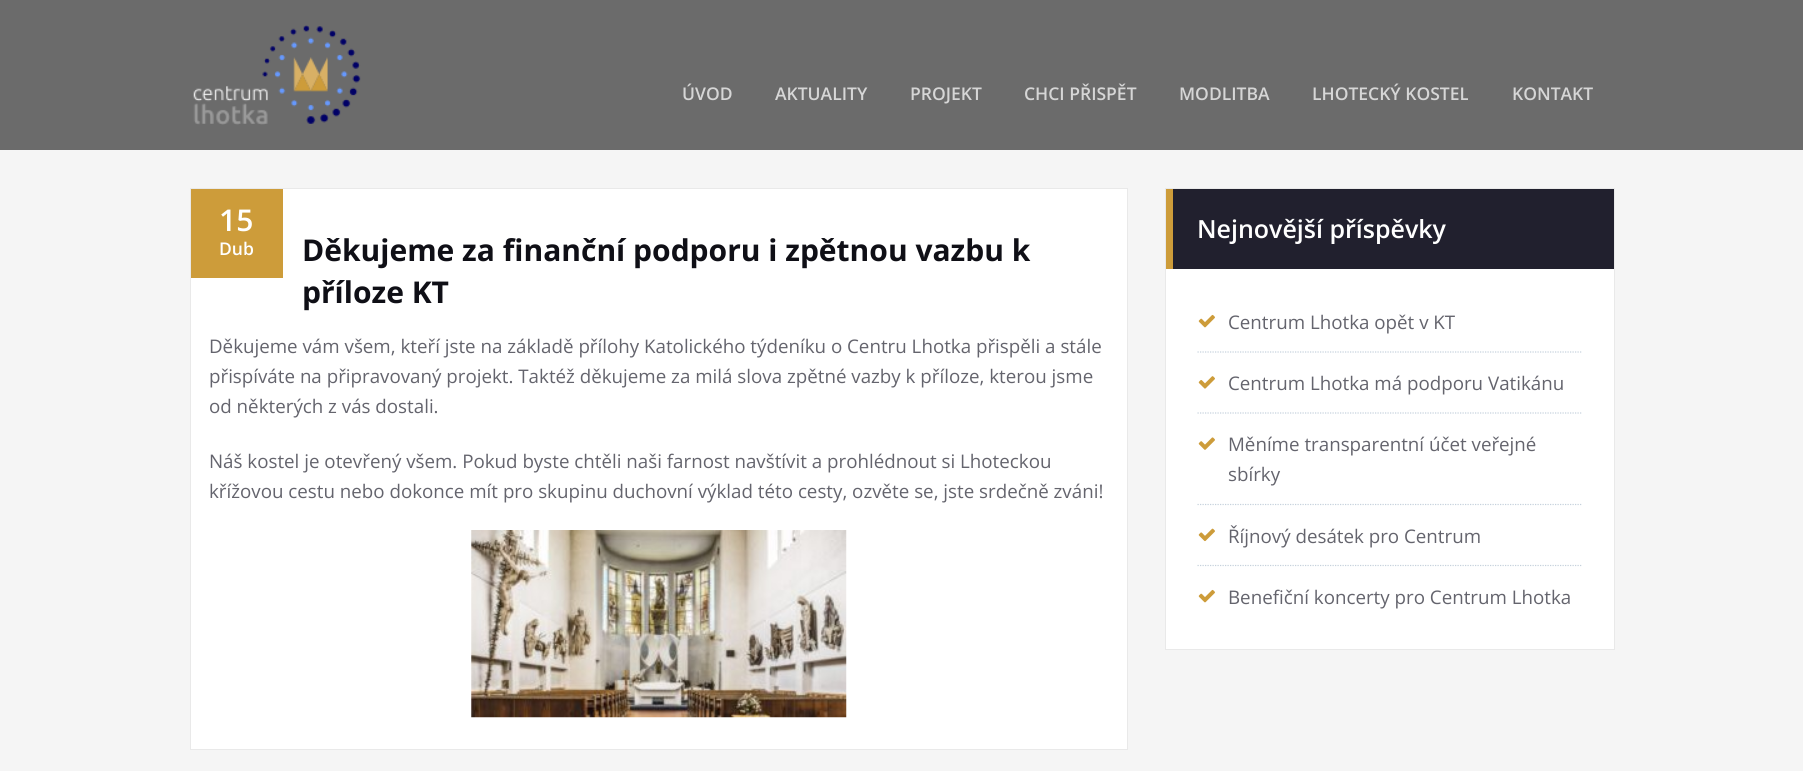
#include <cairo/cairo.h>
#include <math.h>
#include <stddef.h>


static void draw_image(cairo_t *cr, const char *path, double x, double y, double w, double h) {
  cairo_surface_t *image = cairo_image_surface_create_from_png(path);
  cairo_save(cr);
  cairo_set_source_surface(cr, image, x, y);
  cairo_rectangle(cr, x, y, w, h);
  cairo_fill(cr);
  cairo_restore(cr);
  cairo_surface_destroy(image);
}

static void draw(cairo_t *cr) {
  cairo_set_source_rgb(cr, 245 / 255.0, 245 / 255.0, 245 / 255.0);
  cairo_paint(cr);
  cairo_set_source_rgb(cr, 107 / 255.0, 107 / 255.0, 107 / 255.0);
  cairo_rectangle(cr, 0, 0, 1803, 150);
  cairo_fill(cr);
  draw_image(cr, "images/1.png", 193, 25, 168, 100);
  cairo_set_source_rgb(cr, 1, 1, 1);
  cairo_rectangle(cr, 190.5, 188.5, 937, 561);
  cairo_fill_preserve(cr);
  cairo_set_source_rgb(cr, 233 / 255.0, 233 / 255.0, 233 / 255.0);
  cairo_set_line_width(cr, 1);
  cairo_stroke(cr);
  cairo_set_source_rgb(cr, 205 / 255.0, 156 / 255.0, 58 / 255.0);
  cairo_rectangle(cr, 191, 189, 92, 89);
  cairo_fill(cr);
  draw_image(cr, "images/2.png", 471, 530, 376, 188);
  cairo_set_source_rgb(cr, 1, 1, 1);
  cairo_rectangle(cr, 1166, 269, 448, 380);
  cairo_fill(cr);
  cairo_rectangle(cr, 1165.5, 188.5, 449, 461);
  cairo_set_source_rgb(cr, 233 / 255.0, 233 / 255.0, 233 / 255.0);
  cairo_stroke(cr);
  cairo_set_source_rgb(cr, 33 / 255.0, 32 / 255.0, 46 / 255.0);
  cairo_rectangle(cr, 1173, 189, 441, 80);
  cairo_fill(cr);
  cairo_set_source_rgb(cr, 205 / 255.0, 156 / 255.0, 58 / 255.0);
  cairo_rectangle(cr, 1166, 189, 7, 80);
  cairo_fill(cr);
  cairo_new_path(cr);
  cairo_move_to(cr, 1197.5, 352);
  cairo_line_to(cr, 1582.5, 352);
  cairo_set_source_rgb(cr, 197 / 255.0, 209 / 255.0, 220 / 255.0);
  cairo_set_line_width(cr, 1.2);
  cairo_set_dash(cr, (double[]){1.25, 1.25}, 2, 0);
  cairo_stroke(cr);
  draw_image(cr, "images/3.png", 1198, 314, 17, 14);
  cairo_new_path(cr);
  cairo_move_to(cr, 1197.5, 413);
  cairo_line_to(cr, 1582.5, 413);
  cairo_stroke(cr);
  draw_image(cr, "images/4.png", 1198, 376, 17, 13);
  cairo_new_path(cr);
  cairo_move_to(cr, 1197.5, 504.5);
  cairo_line_to(cr, 1582.5, 504.5);
  cairo_stroke(cr);
  draw_image(cr, "images/5.png", 1198, 437, 17, 13);
  cairo_new_path(cr);
  cairo_move_to(cr, 1197.5, 565.5);
  cairo_line_to(cr, 1582.5, 565.5);
  cairo_stroke(cr);
  draw_image(cr, "images/6.png", 1198, 528, 17, 14);
  draw_image(cr, "images/3.png", 1198, 589, 17, 14);
  cairo_select_font_face(cr, "Open Sans SemiBold", CAIRO_FONT_SLANT_NORMAL, CAIRO_FONT_WEIGHT_NORMAL);
  cairo_set_font_size(cr, 17.5);
  cairo_set_source_rgb(cr, 214 / 255.0, 214 / 255.0, 214 / 255.0);
  cairo_move_to(cr, 682, 100);
  cairo_show_text(cr, "ÚVOD");
  cairo_move_to(cr, 775, 100);
  cairo_show_text(cr, "AKTUALITY");
  cairo_move_to(cr, 910, 100);
  cairo_show_text(cr, "PROJEKT");
  cairo_move_to(cr, 1024, 100);
  cairo_show_text(cr, "CHCI PŘISPĚT");
  cairo_move_to(cr, 1179, 100);
  cairo_show_text(cr, "MODLITBA");
  cairo_move_to(cr, 1312, 100);
  cairo_show_text(cr, "LHOTECKÝ KOSTEL");
  cairo_move_to(cr, 1512, 100);
  cairo_show_text(cr, "KONTAKT");
  cairo_set_font_size(cr, 30);
  cairo_set_source_rgb(cr, 1, 1, 1);
  cairo_move_to(cr, 219, 231);
  cairo_show_text(cr, "15");
  cairo_set_font_size(cr, 17.5);
  cairo_move_to(cr, 219, 255);
  cairo_show_text(cr, "Dub");
  cairo_select_font_face(cr, "Open Sans", CAIRO_FONT_SLANT_NORMAL, CAIRO_FONT_WEIGHT_BOLD);
  cairo_set_font_size(cr, 30);
  cairo_set_source_rgb(cr, 15 / 255.0, 15 / 255.0, 22 / 255.0);
  cairo_move_to(cr, 302, 261);
  cairo_show_text(cr, "Děkujeme za finanční podporu i zpětnou vazbu k");
  cairo_move_to(cr, 302, 303);
  cairo_show_text(cr, "příloze KT");
  cairo_select_font_face(cr, "Open Sans", CAIRO_FONT_SLANT_NORMAL, CAIRO_FONT_WEIGHT_NORMAL);
  cairo_set_font_size(cr, 18.75);
  cairo_set_source_rgb(cr, 100 / 255.0, 100 / 255.0, 109 / 255.0);
  cairo_move_to(cr, 209, 353);
  cairo_show_text(cr, "Děkujeme vám všem, kteří jste na základě přílohy Katolického týdeníku o Centru Lhotka přispěli a stále");
  cairo_move_to(cr, 209, 383);
  cairo_show_text(cr, "přispíváte na připravovaný projekt. Taktéž děkujeme za milá slova zpětné vazby k příloze, kterou jsme");
  cairo_move_to(cr, 209, 413);
  cairo_show_text(cr, "od některých z vás dostali.");
  cairo_move_to(cr, 209, 468);
  cairo_show_text(cr, "Náš kostel je otevřený všem. Pokud byste chtěli naši farnost navštívit a prohlédnout si Lhoteckou");
  cairo_move_to(cr, 209, 498);
  cairo_show_text(cr, "křížovou cestu nebo dokonce mít pro skupinu duchovní výklad této cesty, ozvěte se, jste srdečně zváni!");
  cairo_select_font_face(cr, "Open Sans SemiBold", CAIRO_FONT_SLANT_NORMAL, CAIRO_FONT_WEIGHT_NORMAL);
  cairo_set_font_size(cr, 25);
  cairo_set_source_rgb(cr, 1, 1, 1);
  cairo_move_to(cr, 1197, 238);
  cairo_show_text(cr, "Nejnovější příspěvky");
  cairo_select_font_face(cr, "Open Sans", CAIRO_FONT_SLANT_NORMAL, CAIRO_FONT_WEIGHT_NORMAL);
  cairo_set_font_size(cr, 18.75);
  cairo_set_source_rgb(cr, 100 / 255.0, 100 / 255.0, 109 / 255.0);
  cairo_move_to(cr, 1228, 329);
  cairo_show_text(cr, "Centrum Lhotka opět v KT");
  cairo_move_to(cr, 1228, 390);
  cairo_show_text(cr, "Centrum Lhotka má podporu Vatikánu");
  cairo_move_to(cr, 1228, 451);
  cairo_show_text(cr, "Měníme transparentní účet veřejné");
  cairo_move_to(cr, 1228, 481);
  cairo_show_text(cr, "sbírky");
  cairo_move_to(cr, 1228, 543);
  cairo_show_text(cr, "Říjnový desátek pro Centrum");
  cairo_move_to(cr, 1228, 604);
  cairo_show_text(cr, "Benefiční koncerty pro Centrum Lhotka");
}

int main(void) {
  cairo_surface_t *surface = cairo_image_surface_create(CAIRO_FORMAT_RGB24, 1803, 771);
  cairo_t *cr = cairo_create(surface);
  cairo_font_options_t *options = cairo_font_options_create();
  cairo_font_options_set_hint_metrics(options, CAIRO_HINT_METRICS_OFF);
  cairo_font_options_set_hint_style(options, CAIRO_HINT_STYLE_NONE);
  cairo_set_font_options(cr, options);
  cairo_set_miter_limit(cr, 4);
  draw(cr);
  cairo_surface_write_to_png(surface, "out.png");
  cairo_font_options_destroy(options);
  cairo_destroy(cr);
  cairo_surface_destroy(surface);
  return 0;
}
